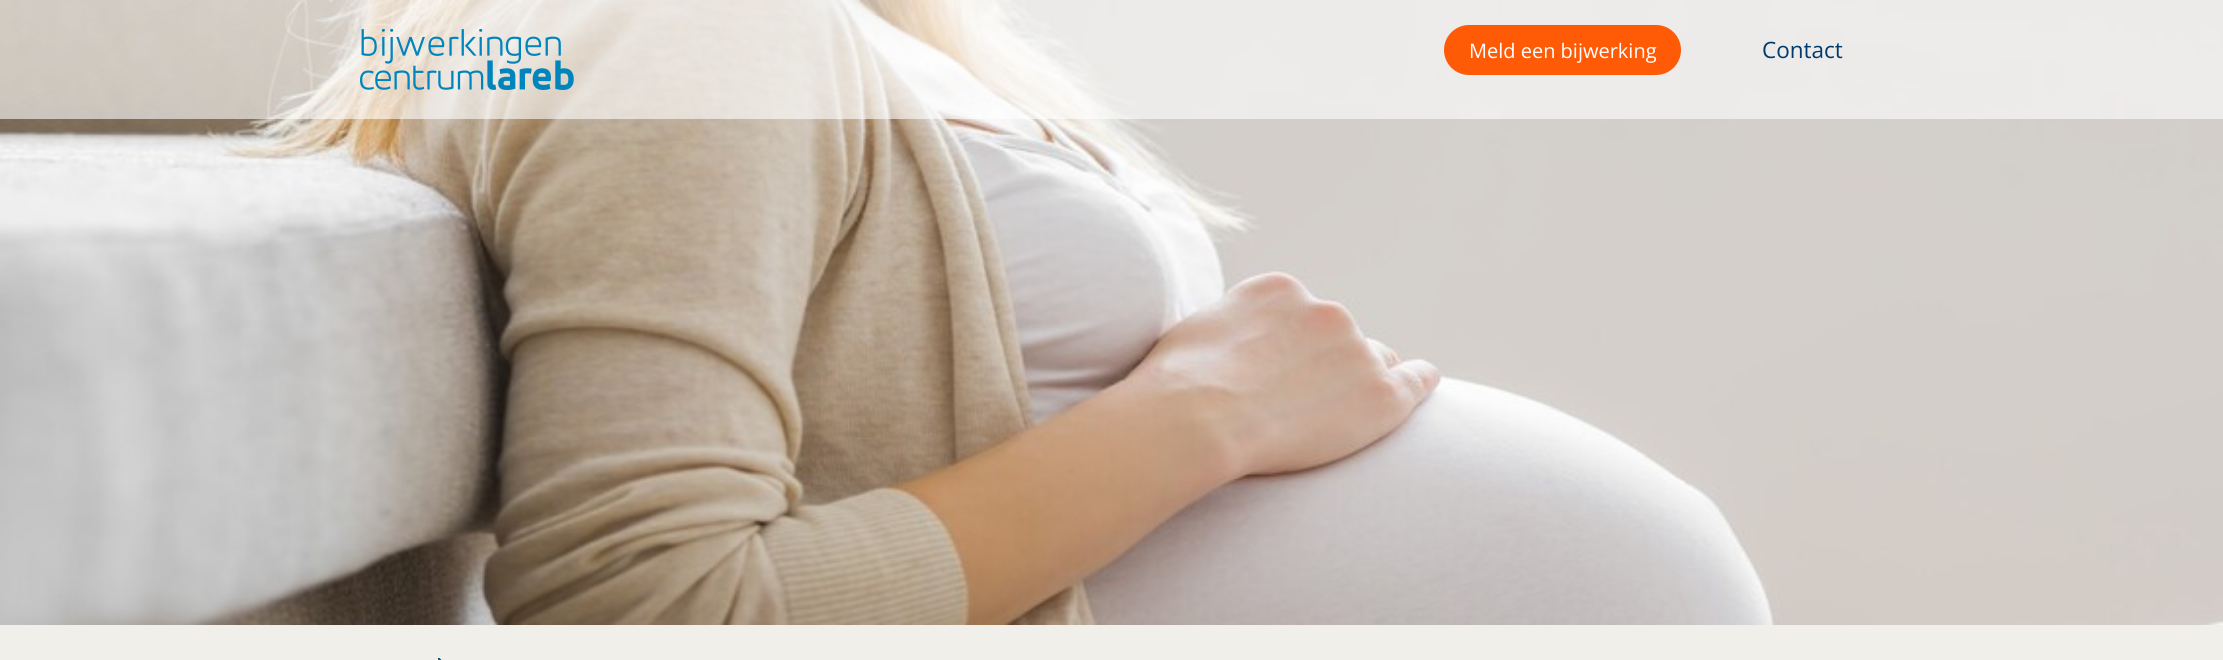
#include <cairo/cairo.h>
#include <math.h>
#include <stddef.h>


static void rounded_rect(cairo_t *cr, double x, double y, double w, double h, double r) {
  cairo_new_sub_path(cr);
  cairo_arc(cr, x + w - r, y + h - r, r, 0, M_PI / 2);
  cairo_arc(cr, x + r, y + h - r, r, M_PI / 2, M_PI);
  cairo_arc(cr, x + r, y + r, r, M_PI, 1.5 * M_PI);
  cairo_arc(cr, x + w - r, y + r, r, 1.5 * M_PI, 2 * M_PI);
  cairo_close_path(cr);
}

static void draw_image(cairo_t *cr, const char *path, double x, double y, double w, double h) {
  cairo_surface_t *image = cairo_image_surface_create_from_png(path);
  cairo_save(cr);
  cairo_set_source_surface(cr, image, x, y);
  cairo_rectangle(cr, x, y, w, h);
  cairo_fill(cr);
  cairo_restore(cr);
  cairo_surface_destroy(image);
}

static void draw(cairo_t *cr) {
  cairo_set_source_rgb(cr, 241 / 255.0, 239 / 255.0, 234 / 255.0);
  cairo_paint(cr);
  draw_image(cr, "images/1.png", 0, 0, 2223, 625);
  cairo_set_source_rgba(cr, 1, 1, 1, 0.6);
  cairo_rectangle(cr, 0, 0, 2223, 119);
  cairo_fill(cr);
  draw_image(cr, "images/2.png", 360, 29, 214, 61);
  cairo_set_source_rgb(cr, 1, 90 / 255.0, 6 / 255.0);
  rounded_rect(cr, 1444, 25, 237, 50, 25);
  cairo_fill(cr);
  draw_image(cr, "images/3.png", 438, 658, 4, 2);
  cairo_select_font_face(cr, "Open Sans", CAIRO_FONT_SLANT_NORMAL, CAIRO_FONT_WEIGHT_NORMAL);
  cairo_set_font_size(cr, 20);
  cairo_set_source_rgb(cr, 1, 1, 1);
  cairo_move_to(cr, 1469, 58);
  cairo_show_text(cr, "Meld een bijwerking");
  cairo_set_font_size(cr, 22.5);
  cairo_set_source_rgb(cr, 0, 59 / 255.0, 110 / 255.0);
  cairo_move_to(cr, 1762, 58);
  cairo_show_text(cr, "Contact");
}

int main(void) {
  cairo_surface_t *surface = cairo_image_surface_create(CAIRO_FORMAT_RGB24, 2223, 660);
  cairo_t *cr = cairo_create(surface);
  cairo_font_options_t *options = cairo_font_options_create();
  cairo_font_options_set_hint_metrics(options, CAIRO_HINT_METRICS_OFF);
  cairo_font_options_set_hint_style(options, CAIRO_HINT_STYLE_NONE);
  cairo_set_font_options(cr, options);
  cairo_set_miter_limit(cr, 4);
  draw(cr);
  cairo_surface_write_to_png(surface, "out.png");
  cairo_font_options_destroy(options);
  cairo_destroy(cr);
  cairo_surface_destroy(surface);
  return 0;
}
